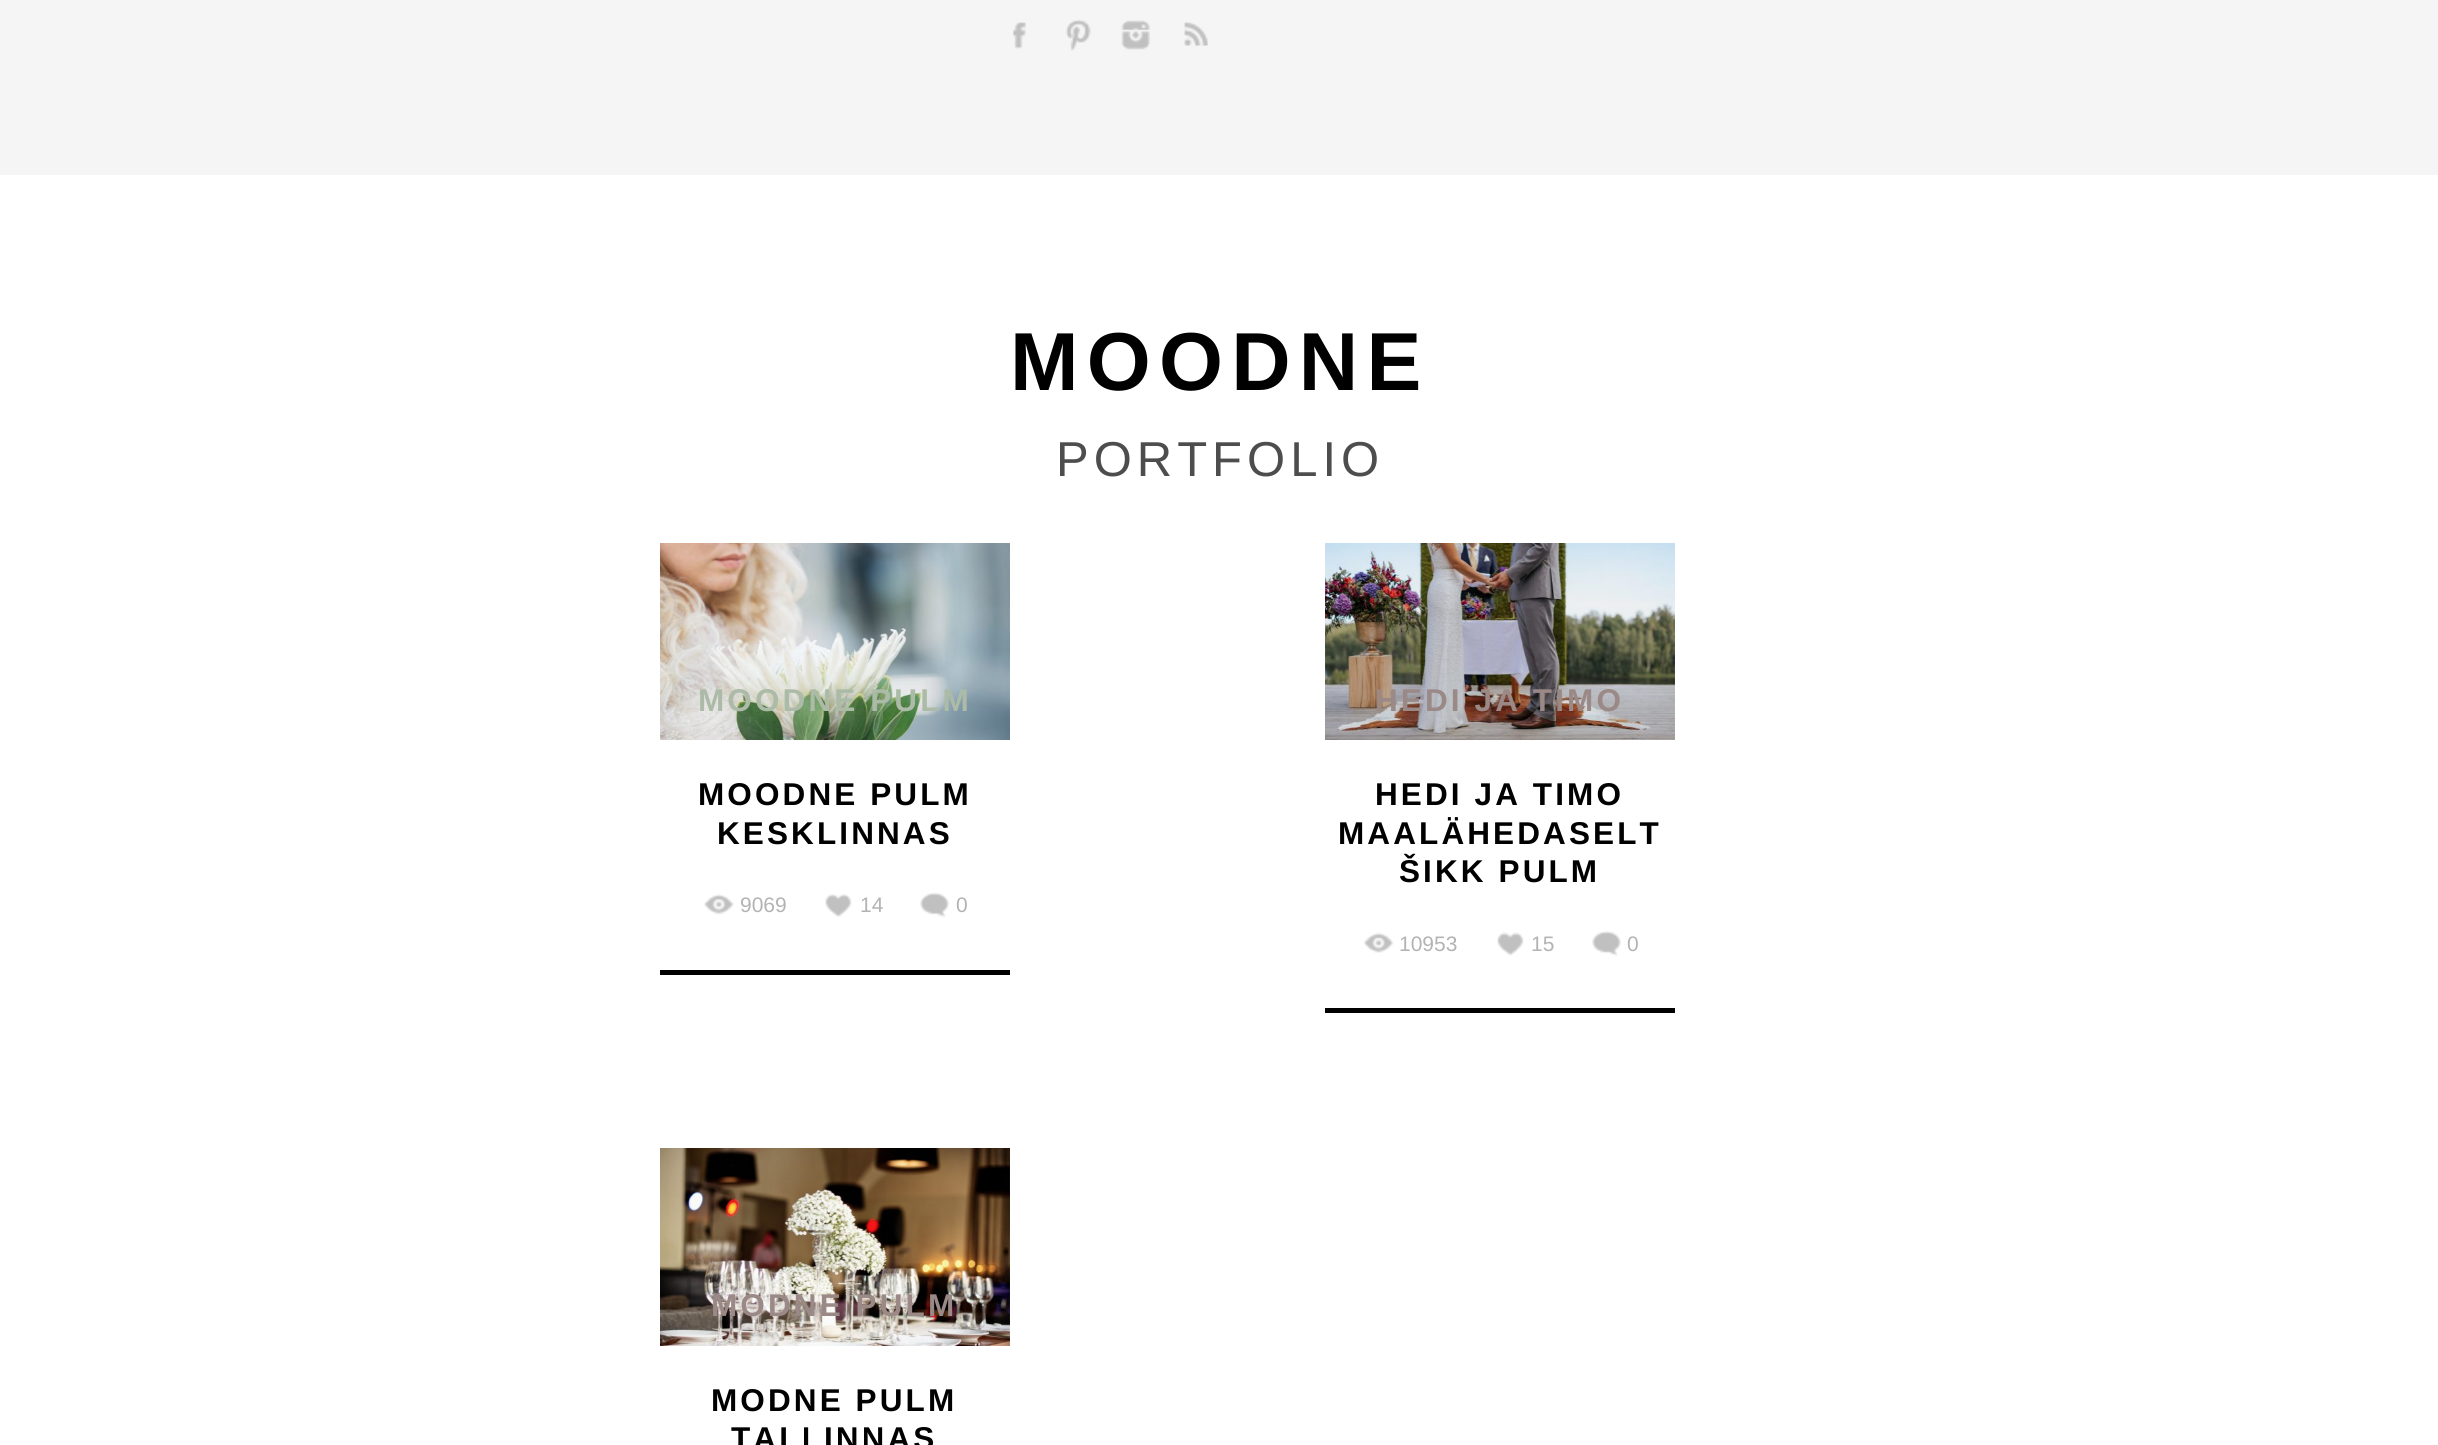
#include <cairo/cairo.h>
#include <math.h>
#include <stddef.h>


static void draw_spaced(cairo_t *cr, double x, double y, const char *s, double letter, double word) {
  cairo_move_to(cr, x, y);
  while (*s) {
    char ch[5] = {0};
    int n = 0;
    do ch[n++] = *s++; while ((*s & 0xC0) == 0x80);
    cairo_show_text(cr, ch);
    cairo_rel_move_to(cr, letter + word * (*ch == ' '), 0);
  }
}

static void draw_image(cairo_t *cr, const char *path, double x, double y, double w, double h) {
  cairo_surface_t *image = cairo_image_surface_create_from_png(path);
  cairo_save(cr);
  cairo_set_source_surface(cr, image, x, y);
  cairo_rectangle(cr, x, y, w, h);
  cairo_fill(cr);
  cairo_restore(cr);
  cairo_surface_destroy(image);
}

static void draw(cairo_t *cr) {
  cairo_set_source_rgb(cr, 1, 1, 1);
  cairo_paint(cr);
  cairo_set_source_rgb(cr, 245 / 255.0, 245 / 255.0, 245 / 255.0);
  cairo_rectangle(cr, 0, 0, 2438, 175);
  cairo_fill(cr);
  draw_image(cr, "images/1.png", 1013, 22, 13, 27);
  draw_image(cr, "images/2.png", 1065, 19, 26, 32);
  draw_image(cr, "images/3.png", 1121, 20, 29, 30);
  draw_image(cr, "images/4.png", 1184, 22, 24, 24);
  draw_image(cr, "images/5.png", 660, 543, 350, 197);
  cairo_set_source_rgb(cr, 0, 0, 0);
  cairo_rectangle(cr, 660, 970, 350, 5);
  cairo_fill(cr);
  draw_image(cr, "images/6.png", 704, 894, 30, 21);
  draw_image(cr, "images/7.png", 825, 894, 27, 23);
  draw_image(cr, "images/8.png", 920, 892, 29, 26);
  draw_image(cr, "images/9.png", 1325, 543, 350, 197);
  cairo_rectangle(cr, 1325, 1008, 350, 5);
  cairo_fill(cr);
  draw_image(cr, "images/10.png", 1363, 932, 31, 21);
  draw_image(cr, "images/11.png", 1497, 932, 27, 24);
  draw_image(cr, "images/12.png", 1592, 931, 29, 25);
  draw_image(cr, "images/13.png", 660, 1148, 350, 198);
  cairo_select_font_face(cr, "Liberation Sans", CAIRO_FONT_SLANT_NORMAL, CAIRO_FONT_WEIGHT_BOLD);
  cairo_set_font_size(cr, 82.25);
  draw_spaced(cr, 1010, 390, "MOODNE", 8.25, 0);
  cairo_select_font_face(cr, "Liberation Sans", CAIRO_FONT_SLANT_NORMAL, CAIRO_FONT_WEIGHT_NORMAL);
  cairo_set_font_size(cr, 49);
  cairo_set_source_rgb(cr, 77 / 255.0, 77 / 255.0, 77 / 255.0);
  draw_spaced(cr, 1056, 476, "PORTFOLIO", 5, 0);
  cairo_select_font_face(cr, "Liberation Sans", CAIRO_FONT_SLANT_NORMAL, CAIRO_FONT_WEIGHT_BOLD);
  cairo_set_font_size(cr, 31.5);
  cairo_set_source_rgb(cr, 172 / 255.0, 187 / 255.0, 167 / 255.0);
  draw_spaced(cr, 698, 711, "MOODNE PULM", 3.1, 0);
  cairo_set_source_rgb(cr, 0, 0, 0);
  draw_spaced(cr, 698, 805, "MOODNE PULM", 3.1, 0);
  draw_spaced(cr, 717, 844, "KESKLINNAS", 3.1, 0);
  cairo_select_font_face(cr, "Liberation Sans", CAIRO_FONT_SLANT_NORMAL, CAIRO_FONT_WEIGHT_NORMAL);
  cairo_set_font_size(cr, 21);
  cairo_set_source_rgb(cr, 179 / 255.0, 179 / 255.0, 179 / 255.0);
  cairo_move_to(cr, 740, 912);
  cairo_show_text(cr, "9069");
  cairo_move_to(cr, 860, 912);
  cairo_show_text(cr, "14");
  cairo_move_to(cr, 956, 912);
  cairo_show_text(cr, "0");
  cairo_select_font_face(cr, "Liberation Sans", CAIRO_FONT_SLANT_NORMAL, CAIRO_FONT_WEIGHT_BOLD);
  cairo_set_font_size(cr, 31.5);
  cairo_set_source_rgb(cr, 154 / 255.0, 137 / 255.0, 134 / 255.0);
  draw_spaced(cr, 1375, 711, "HEDI JA TIMO", 3.1, 0);
  cairo_set_source_rgb(cr, 0, 0, 0);
  draw_spaced(cr, 1375, 805, "HEDI JA TIMO", 3.1, 0);
  draw_spaced(cr, 1338, 844, "MAALÄHEDASELT", 3.1, 0);
  draw_spaced(cr, 1399, 882, "ŠIKK PULM", 3.1, 0);
  cairo_select_font_face(cr, "Liberation Sans", CAIRO_FONT_SLANT_NORMAL, CAIRO_FONT_WEIGHT_NORMAL);
  cairo_set_font_size(cr, 21);
  cairo_set_source_rgb(cr, 179 / 255.0, 179 / 255.0, 179 / 255.0);
  cairo_move_to(cr, 1399, 951);
  cairo_show_text(cr, "10953");
  cairo_move_to(cr, 1531, 951);
  cairo_show_text(cr, "15");
  cairo_move_to(cr, 1627, 951);
  cairo_show_text(cr, "0");
  cairo_select_font_face(cr, "Liberation Sans", CAIRO_FONT_SLANT_NORMAL, CAIRO_FONT_WEIGHT_BOLD);
  cairo_set_font_size(cr, 31.5);
  cairo_set_source_rgb(cr, 154 / 255.0, 137 / 255.0, 134 / 255.0);
  draw_spaced(cr, 711, 1316, "MODNE PULM", 3.1, 0);
  cairo_set_source_rgb(cr, 0, 0, 0);
  draw_spaced(cr, 711, 1411, "MODNE PULM", 3.1, 0);
  draw_spaced(cr, 731, 1449, "TALLINNAS", 3.1, 0);
}

int main(void) {
  cairo_surface_t *surface = cairo_image_surface_create(CAIRO_FORMAT_RGB24, 2438, 1445);
  cairo_t *cr = cairo_create(surface);
  cairo_font_options_t *options = cairo_font_options_create();
  cairo_font_options_set_hint_metrics(options, CAIRO_HINT_METRICS_OFF);
  cairo_font_options_set_hint_style(options, CAIRO_HINT_STYLE_NONE);
  cairo_set_font_options(cr, options);
  cairo_set_miter_limit(cr, 4);
  draw(cr);
  cairo_surface_write_to_png(surface, "out.png");
  cairo_font_options_destroy(options);
  cairo_destroy(cr);
  cairo_surface_destroy(surface);
  return 0;
}
